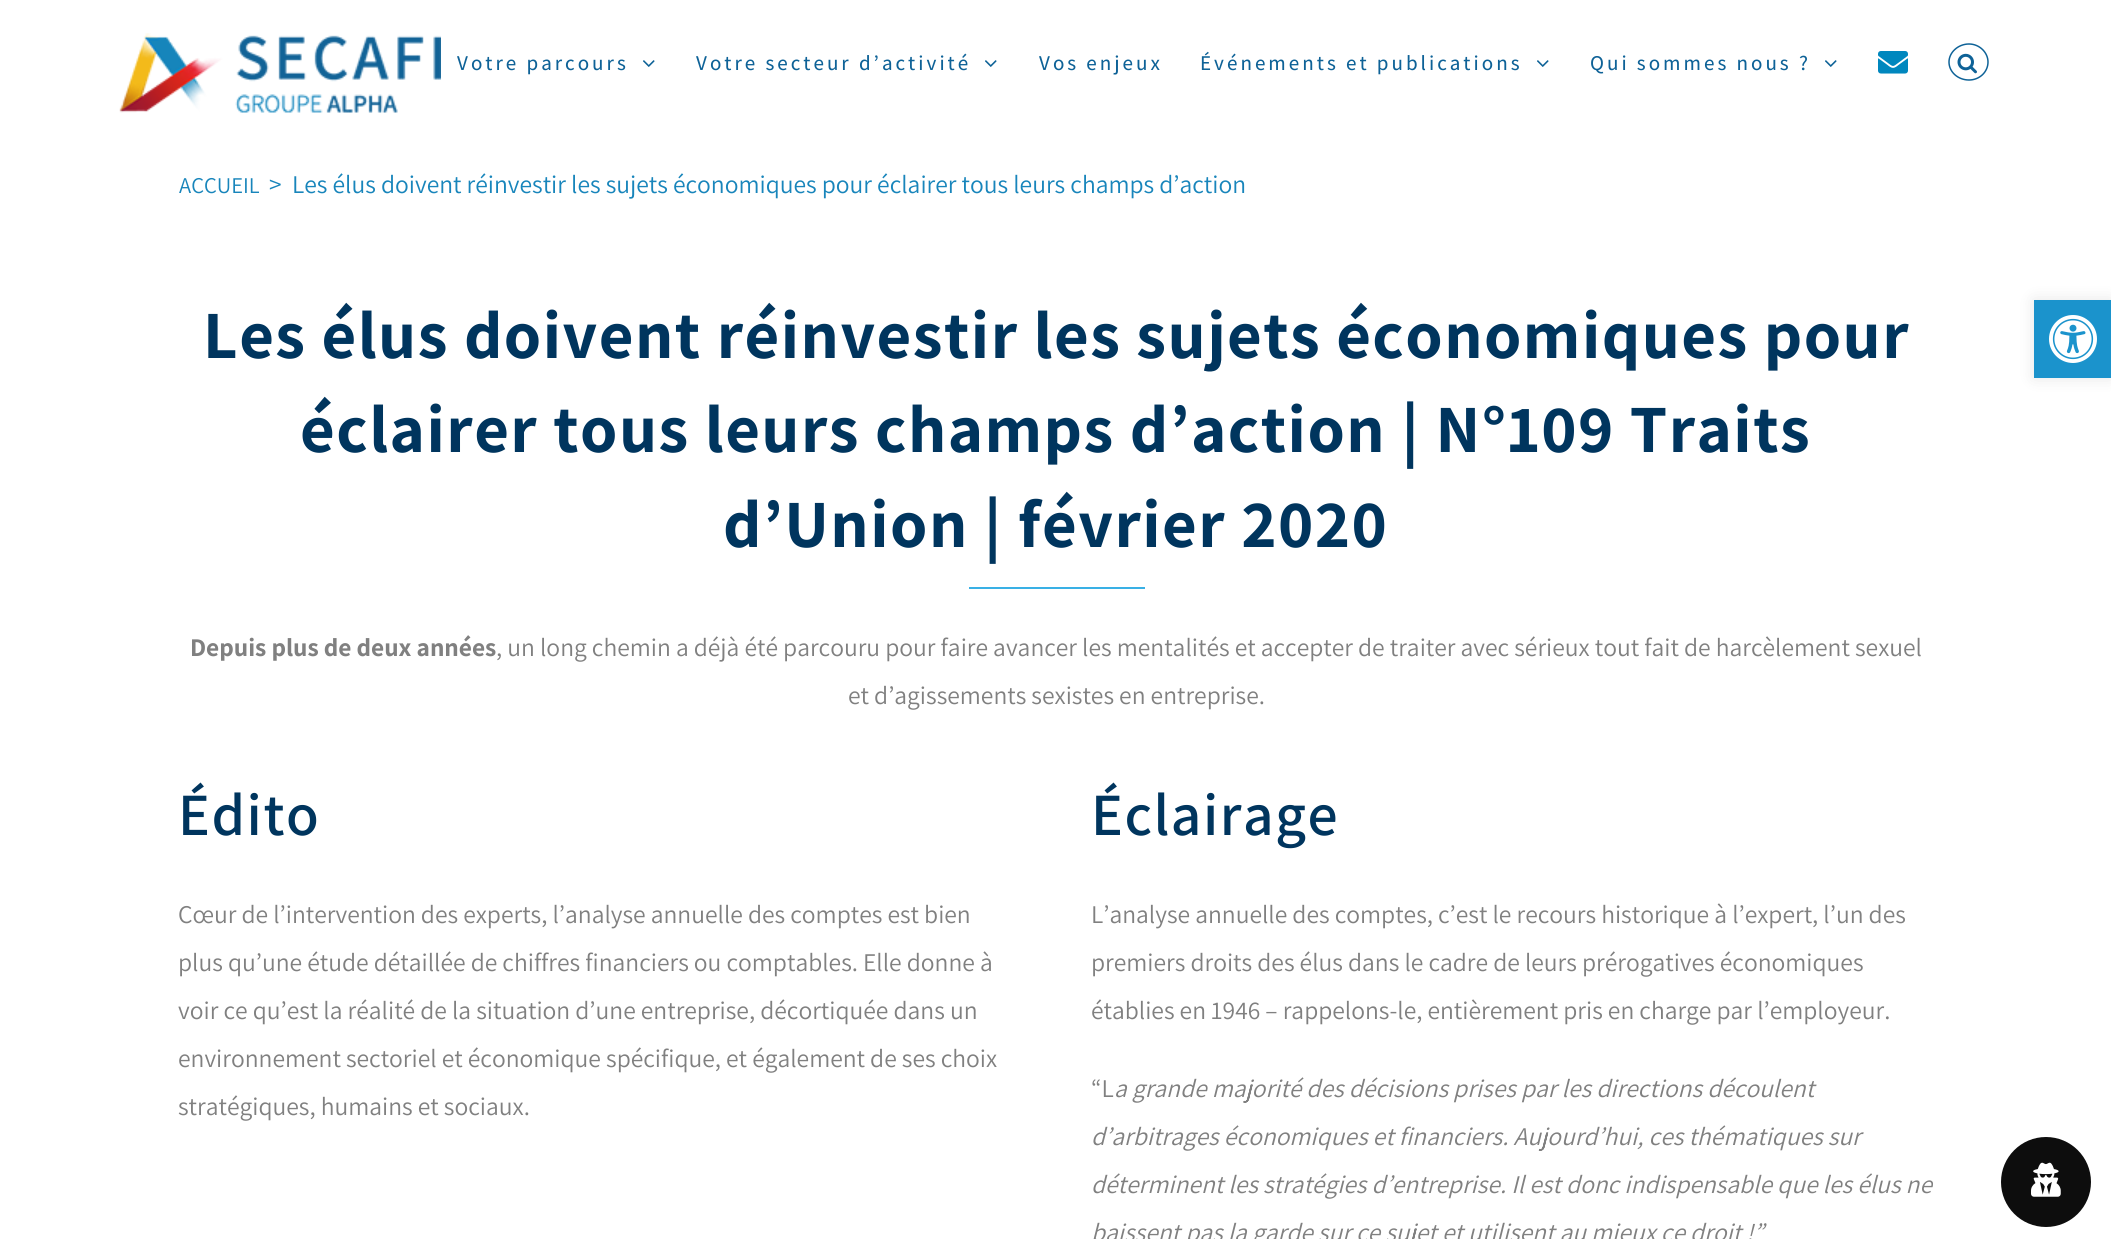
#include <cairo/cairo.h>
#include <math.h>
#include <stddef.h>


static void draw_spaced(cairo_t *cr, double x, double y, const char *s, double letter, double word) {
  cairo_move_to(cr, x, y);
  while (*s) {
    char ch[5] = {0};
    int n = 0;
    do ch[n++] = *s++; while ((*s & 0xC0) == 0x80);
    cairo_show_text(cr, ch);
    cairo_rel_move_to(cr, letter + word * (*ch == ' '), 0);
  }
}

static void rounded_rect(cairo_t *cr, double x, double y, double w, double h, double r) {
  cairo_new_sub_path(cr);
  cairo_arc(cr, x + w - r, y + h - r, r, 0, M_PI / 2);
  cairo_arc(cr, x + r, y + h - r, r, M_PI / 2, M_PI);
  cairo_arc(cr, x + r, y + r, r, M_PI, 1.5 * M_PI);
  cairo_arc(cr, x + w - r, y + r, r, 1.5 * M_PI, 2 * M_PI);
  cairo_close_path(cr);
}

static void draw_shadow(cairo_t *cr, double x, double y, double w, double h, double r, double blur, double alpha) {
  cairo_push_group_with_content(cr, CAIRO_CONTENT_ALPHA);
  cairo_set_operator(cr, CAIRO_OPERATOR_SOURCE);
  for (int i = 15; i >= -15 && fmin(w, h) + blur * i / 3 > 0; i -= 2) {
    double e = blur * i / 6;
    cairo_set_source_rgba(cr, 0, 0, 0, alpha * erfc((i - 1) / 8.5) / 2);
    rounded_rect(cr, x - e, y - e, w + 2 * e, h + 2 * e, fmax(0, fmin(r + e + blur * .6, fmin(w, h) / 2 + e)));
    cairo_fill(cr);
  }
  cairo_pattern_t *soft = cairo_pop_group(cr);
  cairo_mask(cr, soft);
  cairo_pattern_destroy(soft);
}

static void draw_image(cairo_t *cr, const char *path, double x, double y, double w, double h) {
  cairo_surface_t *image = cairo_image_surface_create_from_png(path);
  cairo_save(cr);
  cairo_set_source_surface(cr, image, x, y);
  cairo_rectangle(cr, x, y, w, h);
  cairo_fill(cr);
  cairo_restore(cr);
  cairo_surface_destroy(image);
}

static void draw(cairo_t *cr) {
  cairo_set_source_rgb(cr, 1, 1, 1);
  cairo_paint(cr);
  draw_image(cr, "images/1.png", 119, 33, 322, 80);
  draw_image(cr, "images/2.png", 643, 60, 12, 7);
  draw_image(cr, "images/2.png", 985, 60, 12, 7);
  draw_image(cr, "images/2.png", 1537, 60, 12, 7);
  draw_image(cr, "images/2.png", 1825, 60, 12, 7);
  draw_image(cr, "images/3.png", 1878, 51, 30, 23);
  cairo_new_path(cr);
  cairo_move_to(cr, 1969, 44);
  cairo_curve_to(cr, 1979.5, 44, 1988, 52.5, 1988, 62);
  cairo_curve_to(cr, 1988, 72, 1979.5, 80, 1969, 80);
  cairo_curve_to(cr, 1958, 80, 1949, 72, 1949, 62);
  cairo_curve_to(cr, 1949, 52.5, 1958, 44, 1969, 44);
  cairo_close_path(cr);
  cairo_set_source_rgb(cr, 14 / 255.0, 98 / 255.0, 151 / 255.0);
  cairo_set_line_width(cr, 1.5);
  cairo_stroke(cr);
  draw_image(cr, "images/4.png", 1957, 53, 20, 21);
  cairo_set_source_rgb(cr, 57 / 255.0, 176 / 255.0, 229 / 255.0);
  cairo_rectangle(cr, 969, 587, 176, 2);
  cairo_fill(cr);
  cairo_set_source_rgb(cr, 0, 0, 0);
  draw_shadow(cr, 2034, 300, 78, 78, 0, 7.5, 0.1);
  cairo_set_source_rgb(cr, 27 / 255.0, 147 / 255.0, 204 / 255.0);
  cairo_rectangle(cr, 2034, 300, 77, 78);
  cairo_fill(cr);
  draw_image(cr, "images/5.png", 2049, 315, 48, 48);
  cairo_set_source_rgb(cr, 13 / 255.0, 13 / 255.0, 13 / 255.0);
  cairo_arc(cr, 2046, 1182, 45, 0, 2 * M_PI);
  cairo_fill(cr);
  draw_image(cr, "images/6.png", 2031, 1162, 30, 35);
  cairo_select_font_face(cr, "Assistant Medium", CAIRO_FONT_SLANT_NORMAL, CAIRO_FONT_WEIGHT_NORMAL);
  cairo_set_font_size(cr, 21);
  cairo_set_source_rgb(cr, 14 / 255.0, 98 / 255.0, 151 / 255.0);
  draw_spaced(cr, 457, 70, "Votre parcours", 3, 0);
  draw_spaced(cr, 696, 70, "Votre secteur d’activité", 3, 0);
  draw_spaced(cr, 1039, 70, "Vos enjeux", 3, 0);
  draw_spaced(cr, 1200, 70, "Événements et publications", 3, 0);
  draw_spaced(cr, 1590, 70, "Qui sommes nous ?", 3, 0);
  cairo_select_font_face(cr, "Assistant", CAIRO_FONT_SLANT_NORMAL, CAIRO_FONT_WEIGHT_NORMAL);
  cairo_set_font_size(cr, 22.5);
  cairo_set_source_rgb(cr, 24 / 255.0, 133 / 255.0, 187 / 255.0);
  cairo_move_to(cr, 179, 193);
  cairo_show_text(cr, "ACCUEIL");
  cairo_set_font_size(cr, 25.5);
  cairo_move_to(cr, 269, 193);
  cairo_show_text(cr, ">");
  cairo_move_to(cr, 292, 193);
  cairo_show_text(cr, "Les élus doivent réinvestir les sujets économiques pour éclairer tous leurs champs d’action");
  cairo_select_font_face(cr, "Assistant", CAIRO_FONT_SLANT_NORMAL, CAIRO_FONT_WEIGHT_BOLD);
  cairo_set_font_size(cr, 67.5);
  cairo_set_source_rgb(cr, 0, 53 / 255.0, 94 / 255.0);
  draw_spaced(cr, 203, 358, "Les élus doivent réinvestir les sujets économiques pour", 1.5, 0);
  draw_spaced(cr, 300, 452, "éclairer tous leurs champs d’action | N°109 Traits", 1.5, 0);
  draw_spaced(cr, 723, 547, "d’Union | février 2020", 1.5, 0);
  cairo_set_font_size(cr, 25.5);
  cairo_set_source_rgb(cr, 128 / 255.0, 128 / 255.0, 128 / 255.0);
  cairo_move_to(cr, 190, 656);
  cairo_show_text(cr, "Depuis plus de deux années");
  cairo_select_font_face(cr, "Assistant", CAIRO_FONT_SLANT_NORMAL, CAIRO_FONT_WEIGHT_NORMAL);
  cairo_move_to(cr, 496, 656);
  cairo_show_text(cr, ", un long chemin a déjà été parcouru pour faire avancer les mentalités et accepter de traiter avec sérieux tout fait de harcèlement sexuel");
  cairo_move_to(cr, 848, 704);
  cairo_show_text(cr, "et d’agissements sexistes en entreprise.");
  cairo_select_font_face(cr, "Assistant SemiBold", CAIRO_FONT_SLANT_NORMAL, CAIRO_FONT_WEIGHT_NORMAL);
  cairo_set_font_size(cr, 60);
  cairo_set_source_rgb(cr, 0, 53 / 255.0, 94 / 255.0);
  draw_spaced(cr, 178, 835, "Édito", 1.5, 0);
  cairo_select_font_face(cr, "Assistant", CAIRO_FONT_SLANT_NORMAL, CAIRO_FONT_WEIGHT_NORMAL);
  cairo_set_font_size(cr, 25.5);
  cairo_set_source_rgb(cr, 128 / 255.0, 128 / 255.0, 128 / 255.0);
  cairo_move_to(cr, 178, 923);
  cairo_show_text(cr, "Cœur de l’intervention des experts, l’analyse annuelle des comptes est bien");
  cairo_move_to(cr, 178, 971);
  cairo_show_text(cr, "plus qu’une étude détaillée de chiffres financiers ou comptables. Elle donne à");
  cairo_move_to(cr, 178, 1019);
  cairo_show_text(cr, "voir ce qu’est la réalité de la situation d’une entreprise, décortiquée dans un");
  cairo_move_to(cr, 178, 1067);
  cairo_show_text(cr, "environnement sectoriel et économique spécifique, et également de ses choix");
  cairo_move_to(cr, 178, 1115);
  cairo_show_text(cr, "stratégiques, humains et sociaux.");
  cairo_select_font_face(cr, "Assistant SemiBold", CAIRO_FONT_SLANT_NORMAL, CAIRO_FONT_WEIGHT_NORMAL);
  cairo_set_font_size(cr, 60);
  cairo_set_source_rgb(cr, 0, 53 / 255.0, 94 / 255.0);
  draw_spaced(cr, 1091, 835, "Éclairage", 1.5, 0);
  cairo_select_font_face(cr, "Assistant", CAIRO_FONT_SLANT_NORMAL, CAIRO_FONT_WEIGHT_NORMAL);
  cairo_set_font_size(cr, 25.5);
  cairo_set_source_rgb(cr, 128 / 255.0, 128 / 255.0, 128 / 255.0);
  cairo_move_to(cr, 1091, 923);
  cairo_show_text(cr, "L’analyse annuelle des comptes, c’est le recours historique à l’expert, l’un des");
  cairo_move_to(cr, 1091, 971);
  cairo_show_text(cr, "premiers droits des élus dans le cadre de leurs prérogatives économiques");
  cairo_move_to(cr, 1091, 1019);
  cairo_show_text(cr, "établies en 1946 – rappelons-le, entièrement pris en charge par l’employeur.");
  cairo_move_to(cr, 1091, 1097);
  cairo_show_text(cr, "“L");
  cairo_select_font_face(cr, "Assistant", CAIRO_FONT_SLANT_ITALIC, CAIRO_FONT_WEIGHT_NORMAL);
  cairo_move_to(cr, 1114, 1097);
  cairo_show_text(cr, "a grande majorité des décisions prises par les directions découlent");
  cairo_move_to(cr, 1091, 1145);
  cairo_show_text(cr, "d’arbitrages économiques et financiers. Aujourd’hui, ces thématiques sur");
  cairo_move_to(cr, 1091, 1193);
  cairo_show_text(cr, "déterminent les stratégies d’entreprise. Il est donc indispensable que les élus ne");
  cairo_move_to(cr, 1091, 1241);
  cairo_show_text(cr, "baissent pas la garde sur ce sujet et utilisent au mieux ce droit !”");
}

int main(void) {
  cairo_surface_t *surface = cairo_image_surface_create(CAIRO_FORMAT_RGB24, 2111, 1239);
  cairo_t *cr = cairo_create(surface);
  cairo_font_options_t *options = cairo_font_options_create();
  cairo_font_options_set_hint_metrics(options, CAIRO_HINT_METRICS_OFF);
  cairo_font_options_set_hint_style(options, CAIRO_HINT_STYLE_NONE);
  cairo_set_font_options(cr, options);
  cairo_set_miter_limit(cr, 4);
  draw(cr);
  cairo_surface_write_to_png(surface, "out.png");
  cairo_font_options_destroy(options);
  cairo_destroy(cr);
  cairo_surface_destroy(surface);
  return 0;
}
